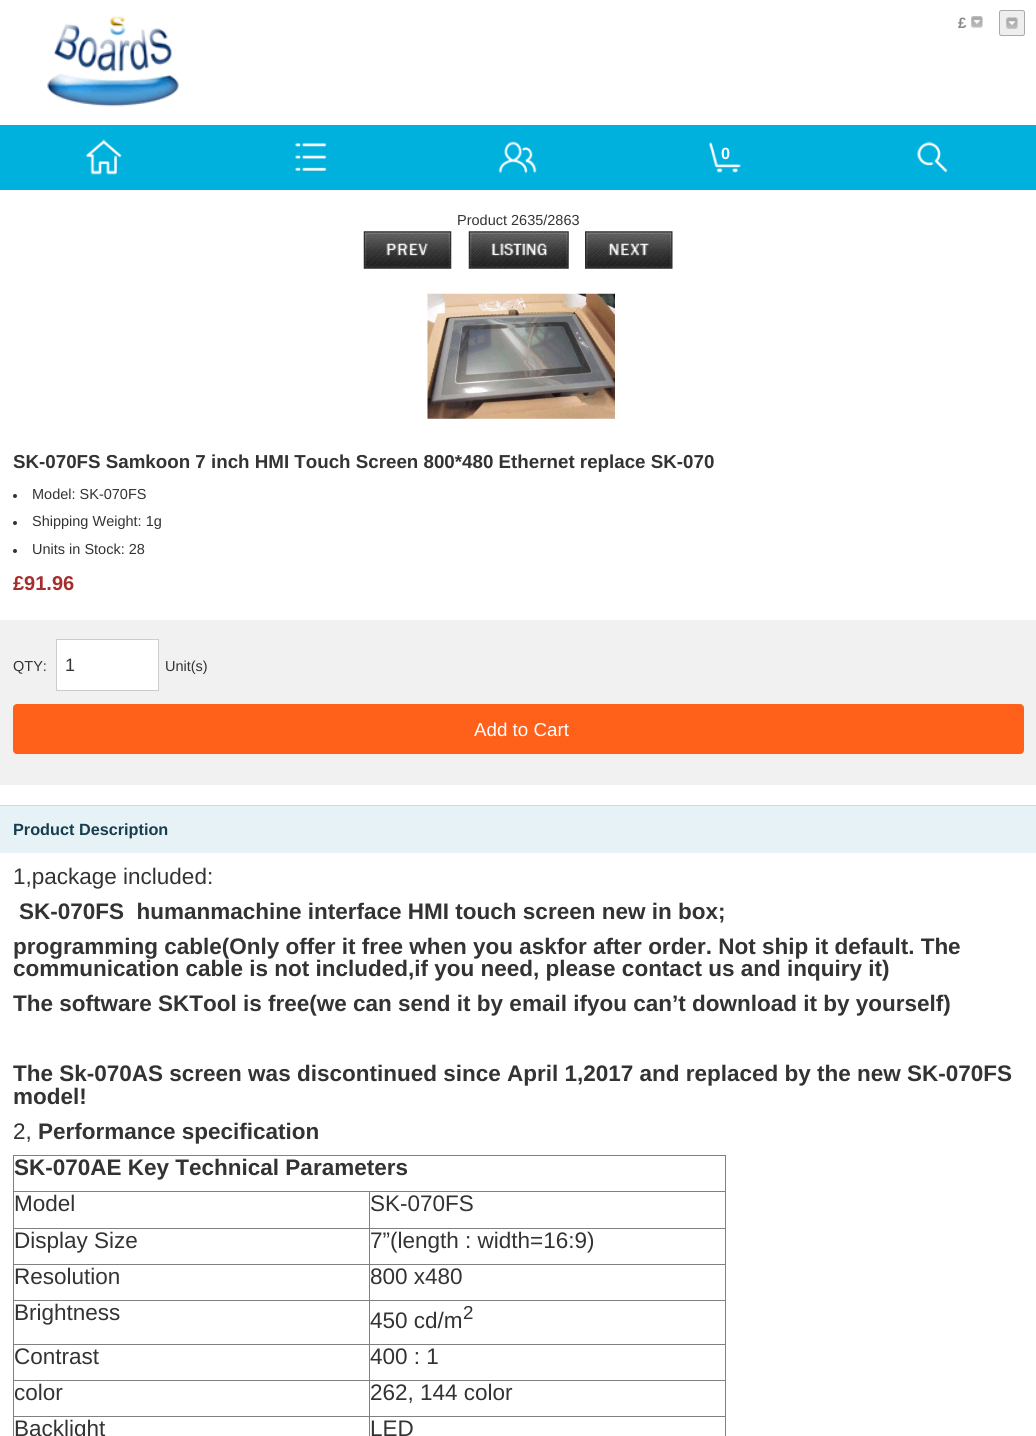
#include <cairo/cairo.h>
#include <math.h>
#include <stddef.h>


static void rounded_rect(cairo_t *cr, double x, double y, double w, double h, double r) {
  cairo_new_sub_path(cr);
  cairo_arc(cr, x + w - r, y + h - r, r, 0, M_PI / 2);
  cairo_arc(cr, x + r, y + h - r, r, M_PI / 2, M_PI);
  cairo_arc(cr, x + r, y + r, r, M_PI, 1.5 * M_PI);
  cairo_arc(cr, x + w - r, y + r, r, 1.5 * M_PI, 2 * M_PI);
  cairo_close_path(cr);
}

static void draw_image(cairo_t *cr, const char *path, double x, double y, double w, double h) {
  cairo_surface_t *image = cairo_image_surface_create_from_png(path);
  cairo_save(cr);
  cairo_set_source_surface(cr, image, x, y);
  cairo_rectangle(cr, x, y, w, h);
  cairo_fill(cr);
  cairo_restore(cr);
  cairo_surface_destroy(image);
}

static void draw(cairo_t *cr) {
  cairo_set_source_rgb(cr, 1, 1, 1);
  cairo_paint(cr);
  draw_image(cr, "images/1.png", 47, 16, 132, 91);
  draw_image(cr, "images/2.png", 971, 16, 12, 12);
  cairo_set_source_rgb(cr, 238 / 255.0, 238 / 255.0, 238 / 255.0);
  rounded_rect(cr, 999, 10, 26, 26, 2.5);
  cairo_fill(cr);
  draw_image(cr, "images/3.png", 1006, 17, 12, 12);
  rounded_rect(cr, 999.5, 10.5, 25, 25, 2);
  cairo_set_source_rgb(cr, 170 / 255.0, 170 / 255.0, 170 / 255.0);
  cairo_set_line_width(cr, 1);
  cairo_stroke(cr);
  cairo_set_source_rgb(cr, 0, 177 / 255.0, 222 / 255.0);
  cairo_rectangle(cr, 0, 125, 1036, 65);
  cairo_fill(cr);
  draw_image(cr, "images/4.png", 86, 139, 36, 36);
  draw_image(cr, "images/5.png", 295, 143, 32, 28);
  draw_image(cr, "images/6.png", 498, 141, 39, 33);
  draw_image(cr, "images/7.png", 709, 142, 32, 31);
  draw_image(cr, "images/8.png", 917, 141, 31, 32);
  draw_image(cr, "images/9.png", 363, 231, 89, 38);
  draw_image(cr, "images/10.png", 468, 231, 101, 38);
  draw_image(cr, "images/11.png", 585, 231, 88, 38);
  draw_image(cr, "images/12.png", 427, 293, 188, 126);
  cairo_set_source_rgb(cr, 51 / 255.0, 51 / 255.0, 51 / 255.0);
  cairo_arc(cr, 15, 496, 2, 0, 2 * M_PI);
  cairo_fill(cr);
  cairo_arc(cr, 15, 523, 2, 0, 2 * M_PI);
  cairo_fill(cr);
  cairo_arc(cr, 15, 551, 2, 0, 2 * M_PI);
  cairo_fill(cr);
  cairo_set_source_rgb(cr, 241 / 255.0, 241 / 255.0, 241 / 255.0);
  cairo_rectangle(cr, 0, 620, 1036, 165);
  cairo_fill(cr);
  cairo_set_source_rgb(cr, 1, 1, 1);
  cairo_rectangle(cr, 56.5, 639.5, 102, 51);
  cairo_fill_preserve(cr);
  cairo_set_source_rgb(cr, 204 / 255.0, 204 / 255.0, 204 / 255.0);
  cairo_stroke(cr);
  cairo_set_source_rgb(cr, 1, 97 / 255.0, 27 / 255.0);
  rounded_rect(cr, 13.5, 704.5, 1010, 49, 3.5);
  cairo_fill_preserve(cr);
  cairo_stroke(cr);
  cairo_set_source_rgb(cr, 231 / 255.0, 242 / 255.0, 247 / 255.0);
  cairo_rectangle(cr, 0, 806, 1036, 47);
  cairo_fill(cr);
  cairo_set_source_rgb(cr, 196 / 255.0, 223 / 255.0, 233 / 255.0);
  cairo_rectangle(cr, 0, 805, 1036, 1);
  cairo_fill(cr);
  cairo_set_source_rgb(cr, 128 / 255.0, 128 / 255.0, 128 / 255.0);
  cairo_rectangle(cr, 13, 1155, 713, 1);
  cairo_fill(cr);
  cairo_rectangle(cr, 725, 1155, 1, 281);
  cairo_fill(cr);
  cairo_rectangle(cr, 13, 1155, 1, 281);
  cairo_fill(cr);
  cairo_rectangle(cr, 369, 1191, 357, 1);
  cairo_fill(cr);
  cairo_rectangle(cr, 369, 1228, 357, 1);
  cairo_fill(cr);
  cairo_rectangle(cr, 369, 1264, 357, 1);
  cairo_fill(cr);
  cairo_rectangle(cr, 369, 1300, 357, 1);
  cairo_fill(cr);
  cairo_rectangle(cr, 369, 1344, 357, 1);
  cairo_fill(cr);
  cairo_rectangle(cr, 369, 1380, 357, 1);
  cairo_fill(cr);
  cairo_rectangle(cr, 369, 1416, 357, 1);
  cairo_fill(cr);
  cairo_rectangle(cr, 369, 1416, 1, 20);
  cairo_fill(cr);
  cairo_rectangle(cr, 13, 1416, 357, 1);
  cairo_fill(cr);
  cairo_rectangle(cr, 369, 1380, 1, 38);
  cairo_fill(cr);
  cairo_rectangle(cr, 13, 1380, 357, 1);
  cairo_fill(cr);
  cairo_rectangle(cr, 369, 1344, 1, 37);
  cairo_fill(cr);
  cairo_rectangle(cr, 13, 1344, 357, 1);
  cairo_fill(cr);
  cairo_rectangle(cr, 369, 1300, 1, 45);
  cairo_fill(cr);
  cairo_rectangle(cr, 13, 1300, 357, 1);
  cairo_fill(cr);
  cairo_rectangle(cr, 369, 1264, 1, 37);
  cairo_fill(cr);
  cairo_rectangle(cr, 13, 1264, 357, 1);
  cairo_fill(cr);
  cairo_rectangle(cr, 369, 1228, 1, 37);
  cairo_fill(cr);
  cairo_rectangle(cr, 13, 1228, 357, 1);
  cairo_fill(cr);
  cairo_rectangle(cr, 369, 1191, 1, 38);
  cairo_fill(cr);
  cairo_rectangle(cr, 13, 1191, 357, 1);
  cairo_fill(cr);
  cairo_select_font_face(cr, "Liberation Sans", CAIRO_FONT_SLANT_NORMAL, CAIRO_FONT_WEIGHT_BOLD);
  cairo_set_font_size(cr, 15);
  cairo_set_source_rgb(cr, 136 / 255.0, 136 / 255.0, 136 / 255.0);
  cairo_move_to(cr, 958, 28);
  cairo_show_text(cr, "£");
  cairo_set_font_size(cr, 16.25);
  cairo_set_source_rgb(cr, 1, 1, 1);
  cairo_move_to(cr, 721, 159);
  cairo_show_text(cr, "0");
  cairo_select_font_face(cr, "Liberation Sans", CAIRO_FONT_SLANT_NORMAL, CAIRO_FONT_WEIGHT_NORMAL);
  cairo_set_font_size(cr, 14.5);
  cairo_set_source_rgb(cr, 51 / 255.0, 51 / 255.0, 51 / 255.0);
  cairo_move_to(cr, 457, 225);
  cairo_show_text(cr, "Product 2635/2863");
  cairo_select_font_face(cr, "Liberation Sans", CAIRO_FONT_SLANT_NORMAL, CAIRO_FONT_WEIGHT_BOLD);
  cairo_set_font_size(cr, 18.75);
  cairo_move_to(cr, 13, 468);
  cairo_show_text(cr, "SK-070FS Samkoon 7 inch HMI Touch Screen 800*480 Ethernet replace SK-070");
  cairo_select_font_face(cr, "Liberation Sans", CAIRO_FONT_SLANT_NORMAL, CAIRO_FONT_WEIGHT_NORMAL);
  cairo_set_font_size(cr, 14.5);
  cairo_move_to(cr, 32, 499);
  cairo_show_text(cr, "Model: SK-070FS");
  cairo_move_to(cr, 32, 526);
  cairo_show_text(cr, "Shipping Weight: 1g");
  cairo_move_to(cr, 32, 554);
  cairo_show_text(cr, "Units in Stock: 28");
  cairo_select_font_face(cr, "Liberation Sans", CAIRO_FONT_SLANT_NORMAL, CAIRO_FONT_WEIGHT_BOLD);
  cairo_set_font_size(cr, 20);
  cairo_set_source_rgb(cr, 167 / 255.0, 45 / 255.0, 44 / 255.0);
  cairo_move_to(cr, 13, 590);
  cairo_show_text(cr, "£91.96");
  cairo_select_font_face(cr, "Liberation Sans", CAIRO_FONT_SLANT_NORMAL, CAIRO_FONT_WEIGHT_NORMAL);
  cairo_set_font_size(cr, 14.5);
  cairo_set_source_rgb(cr, 51 / 255.0, 51 / 255.0, 51 / 255.0);
  cairo_move_to(cr, 13, 671);
  cairo_show_text(cr, "QTY:");
  cairo_set_font_size(cr, 18);
  cairo_move_to(cr, 65, 671);
  cairo_show_text(cr, "1");
  cairo_set_font_size(cr, 14.5);
  cairo_move_to(cr, 165, 671);
  cairo_show_text(cr, "Unit(s)");
  cairo_set_font_size(cr, 18.75);
  cairo_set_source_rgb(cr, 1, 1, 1);
  cairo_move_to(cr, 474, 736);
  cairo_show_text(cr, "Add to Cart");
  cairo_select_font_face(cr, "Liberation Sans", CAIRO_FONT_SLANT_NORMAL, CAIRO_FONT_WEIGHT_BOLD);
  cairo_set_font_size(cr, 16.25);
  cairo_set_source_rgb(cr, 22 / 255.0, 62 / 255.0, 77 / 255.0);
  cairo_move_to(cr, 13, 835);
  cairo_show_text(cr, "Product Description");
  cairo_select_font_face(cr, "Liberation Sans", CAIRO_FONT_SLANT_NORMAL, CAIRO_FONT_WEIGHT_NORMAL);
  cairo_set_font_size(cr, 22.5);
  cairo_set_source_rgb(cr, 51 / 255.0, 51 / 255.0, 51 / 255.0);
  cairo_move_to(cr, 13, 884);
  cairo_show_text(cr, "1,package included:");
  cairo_select_font_face(cr, "Liberation Sans", CAIRO_FONT_SLANT_NORMAL, CAIRO_FONT_WEIGHT_BOLD);
  cairo_move_to(cr, 19, 919);
  cairo_show_text(cr, "SK-070FS  humanmachine interface HMI touch screen new in box;");
  cairo_move_to(cr, 13, 954);
  cairo_show_text(cr, "programming cable(Only offer it free when you askfor after order. Not ship it default. The");
  cairo_move_to(cr, 13, 976);
  cairo_show_text(cr, "communication cable is not included,if you need, please contact us and inquiry it)");
  cairo_move_to(cr, 13, 1011);
  cairo_show_text(cr, "The software SKTool is free(we can send it by email ifyou can’t download it by yourself)");
  cairo_move_to(cr, 13, 1081);
  cairo_show_text(cr, "The Sk-070AS screen was discontinued since April 1,2017 and replaced by the new SK-070FS");
  cairo_move_to(cr, 13, 1104);
  cairo_show_text(cr, "model!");
  cairo_select_font_face(cr, "Liberation Sans", CAIRO_FONT_SLANT_NORMAL, CAIRO_FONT_WEIGHT_NORMAL);
  cairo_move_to(cr, 13, 1139);
  cairo_show_text(cr, "2,");
  cairo_select_font_face(cr, "Liberation Sans", CAIRO_FONT_SLANT_NORMAL, CAIRO_FONT_WEIGHT_BOLD);
  cairo_move_to(cr, 38, 1139);
  cairo_show_text(cr, "Performance specification");
  cairo_move_to(cr, 14, 1175);
  cairo_show_text(cr, "SK-070AE Key Technical Parameters");
  cairo_select_font_face(cr, "Liberation Sans", CAIRO_FONT_SLANT_NORMAL, CAIRO_FONT_WEIGHT_NORMAL);
  cairo_move_to(cr, 14, 1211);
  cairo_show_text(cr, "Model");
  cairo_move_to(cr, 370, 1211);
  cairo_show_text(cr, "SK-070FS");
  cairo_move_to(cr, 14, 1248);
  cairo_show_text(cr, "Display Size");
  cairo_move_to(cr, 370, 1248);
  cairo_show_text(cr, "7”(length : width=16:9)");
  cairo_move_to(cr, 14, 1284);
  cairo_show_text(cr, "Resolution");
  cairo_move_to(cr, 370, 1284);
  cairo_show_text(cr, "800 x480");
  cairo_move_to(cr, 14, 1320);
  cairo_show_text(cr, "Brightness");
  cairo_move_to(cr, 370, 1328);
  cairo_show_text(cr, "450 cd/m");
  cairo_set_font_size(cr, 18.75);
  cairo_move_to(cr, 463, 1319);
  cairo_show_text(cr, "2");
  cairo_set_font_size(cr, 22.5);
  cairo_move_to(cr, 14, 1364);
  cairo_show_text(cr, "Contrast");
  cairo_move_to(cr, 370, 1364);
  cairo_show_text(cr, "400 : 1");
  cairo_move_to(cr, 14, 1400);
  cairo_show_text(cr, "color");
  cairo_move_to(cr, 370, 1400);
  cairo_show_text(cr, "262, 144 color");
  cairo_move_to(cr, 14, 1436);
  cairo_show_text(cr, "Backlight");
  cairo_move_to(cr, 370, 1436);
  cairo_show_text(cr, "LED");
}

int main(void) {
  cairo_surface_t *surface = cairo_image_surface_create(CAIRO_FORMAT_RGB24, 1036, 1436);
  cairo_t *cr = cairo_create(surface);
  cairo_font_options_t *options = cairo_font_options_create();
  cairo_font_options_set_hint_metrics(options, CAIRO_HINT_METRICS_OFF);
  cairo_font_options_set_hint_style(options, CAIRO_HINT_STYLE_NONE);
  cairo_set_font_options(cr, options);
  cairo_set_miter_limit(cr, 4);
  draw(cr);
  cairo_surface_write_to_png(surface, "out.png");
  cairo_font_options_destroy(options);
  cairo_destroy(cr);
  cairo_surface_destroy(surface);
  return 0;
}
